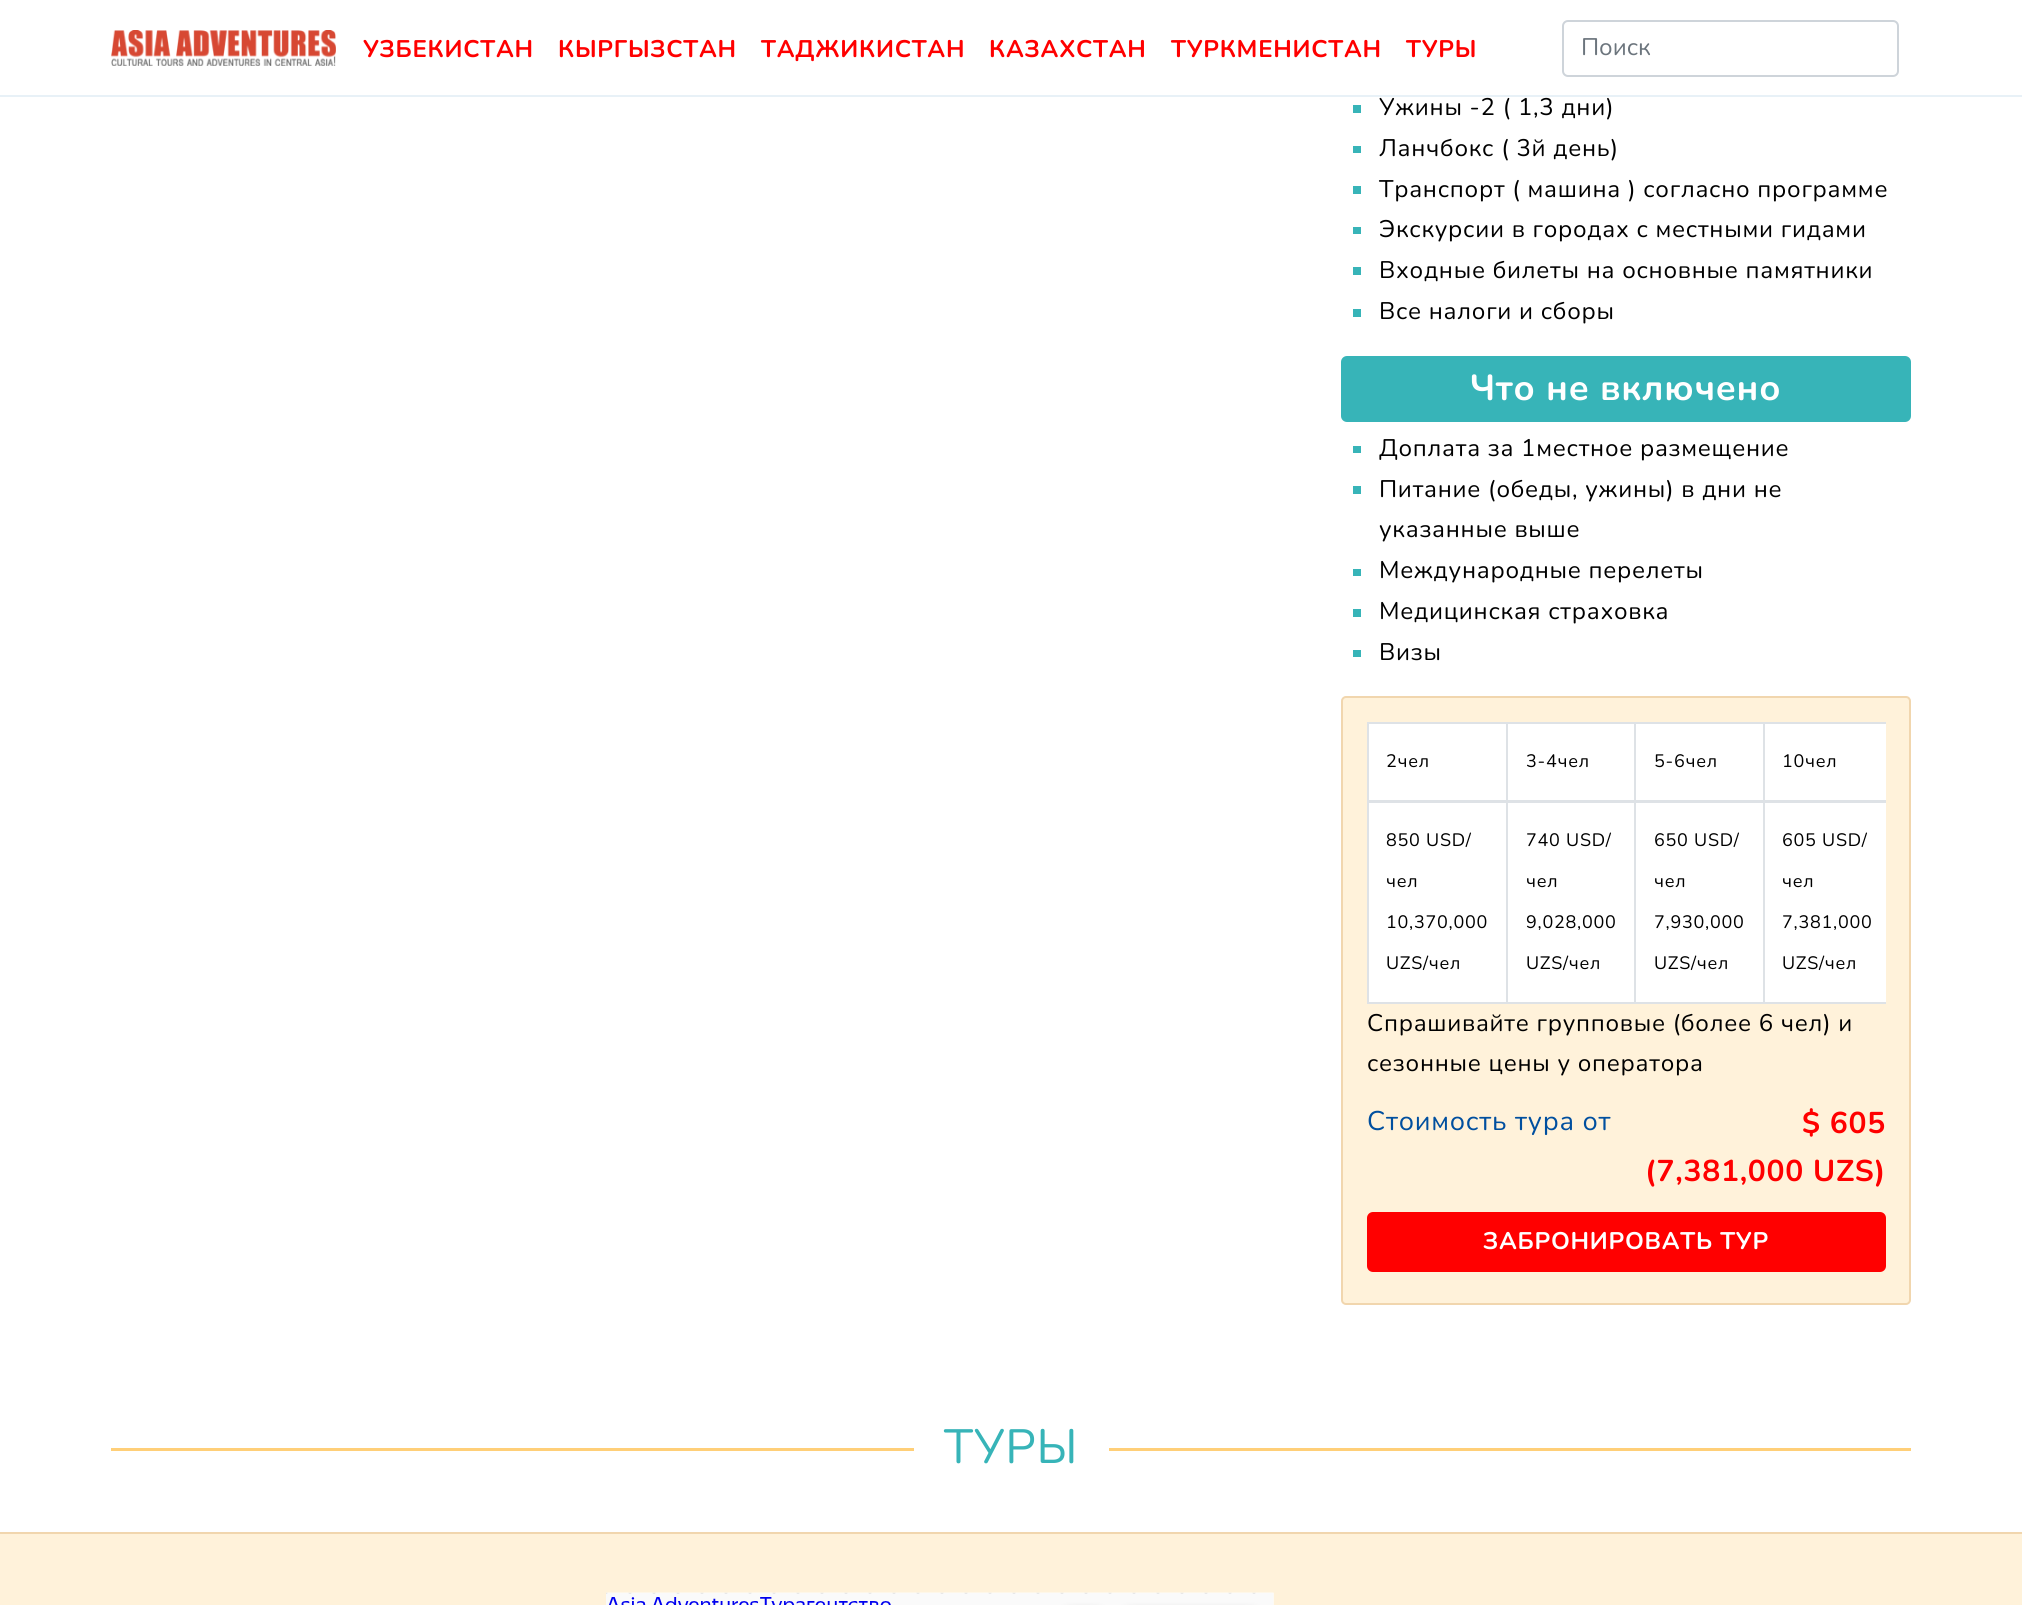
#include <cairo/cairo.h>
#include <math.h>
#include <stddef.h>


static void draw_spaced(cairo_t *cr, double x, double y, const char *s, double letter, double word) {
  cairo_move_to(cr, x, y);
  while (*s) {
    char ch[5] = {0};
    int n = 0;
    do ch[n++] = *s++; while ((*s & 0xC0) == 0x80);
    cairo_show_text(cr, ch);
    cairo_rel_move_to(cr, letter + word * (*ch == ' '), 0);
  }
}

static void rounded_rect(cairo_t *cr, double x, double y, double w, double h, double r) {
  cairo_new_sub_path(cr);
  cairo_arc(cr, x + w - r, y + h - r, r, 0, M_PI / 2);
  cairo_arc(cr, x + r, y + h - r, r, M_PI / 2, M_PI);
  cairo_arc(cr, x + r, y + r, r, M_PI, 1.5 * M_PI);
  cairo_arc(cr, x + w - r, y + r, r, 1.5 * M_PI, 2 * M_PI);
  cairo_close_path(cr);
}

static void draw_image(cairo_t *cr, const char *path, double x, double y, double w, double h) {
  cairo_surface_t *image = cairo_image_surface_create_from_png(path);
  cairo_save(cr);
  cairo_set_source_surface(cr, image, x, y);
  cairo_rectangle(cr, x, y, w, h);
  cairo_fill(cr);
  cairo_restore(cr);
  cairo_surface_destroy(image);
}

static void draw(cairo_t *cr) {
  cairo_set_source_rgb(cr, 1, 1, 1);
  cairo_paint(cr);
  cairo_set_source_rgb(cr, 232 / 255.0, 241 / 255.0, 247 / 255.0);
  cairo_rectangle(cr, 0, 95, 2022, 2);
  cairo_fill(cr);
  draw_image(cr, "images/1.png", 111, 30, 225, 36);
  rounded_rect(cr, 1563, 21, 335, 55, 5);
  cairo_set_source_rgb(cr, 206 / 255.0, 212 / 255.0, 218 / 255.0);
  cairo_stroke(cr);
  cairo_set_source_rgb(cr, 55 / 255.0, 180 / 255.0, 184 / 255.0);
  cairo_rectangle(cr, 1353, 105, 8, 8);
  cairo_fill(cr);
  cairo_rectangle(cr, 1353, 146, 8, 7);
  cairo_fill(cr);
  cairo_rectangle(cr, 1353, 186, 8, 8);
  cairo_fill(cr);
  cairo_rectangle(cr, 1353, 227, 8, 7);
  cairo_fill(cr);
  cairo_rectangle(cr, 1353, 267, 8, 8);
  cairo_fill(cr);
  cairo_rectangle(cr, 1353, 309, 8, 8);
  cairo_fill(cr);
  rounded_rect(cr, 1341, 356, 570, 66, 6);
  cairo_fill(cr);
  cairo_rectangle(cr, 1353, 446, 8, 7);
  cairo_fill(cr);
  cairo_rectangle(cr, 1353, 486, 8, 8);
  cairo_fill(cr);
  cairo_rectangle(cr, 1353, 569, 8, 7);
  cairo_fill(cr);
  cairo_rectangle(cr, 1353, 609, 8, 8);
  cairo_fill(cr);
  cairo_rectangle(cr, 1353, 650, 8, 7);
  cairo_fill(cr);
  cairo_set_source_rgb(cr, 1, 242 / 255.0, 218 / 255.0);
  rounded_rect(cr, 1342, 697, 568, 607, 4);
  cairo_fill_preserve(cr);
  cairo_set_source_rgb(cr, 241 / 255.0, 214 / 255.0, 174 / 255.0);
  cairo_stroke(cr);
  cairo_set_source_rgb(cr, 1, 1, 1);
  cairo_rectangle(cr, 1369, 724, 517, 278);
  cairo_fill(cr);
  cairo_set_source_rgb(cr, 222 / 255.0, 226 / 255.0, 230 / 255.0);
  cairo_rectangle(cr, 1763, 722, 123, 2);
  cairo_fill(cr);
  cairo_rectangle(cr, 1763, 1002, 123, 2);
  cairo_fill(cr);
  cairo_rectangle(cr, 1763, 801, 2, 203);
  cairo_fill(cr);
  cairo_rectangle(cr, 1763, 722, 2, 81);
  cairo_fill(cr);
  cairo_rectangle(cr, 1634, 722, 130, 2);
  cairo_fill(cr);
  cairo_rectangle(cr, 1634, 1002, 130, 2);
  cairo_fill(cr);
  cairo_rectangle(cr, 1634, 801, 2, 203);
  cairo_fill(cr);
  cairo_rectangle(cr, 1634, 722, 2, 81);
  cairo_fill(cr);
  cairo_rectangle(cr, 1506, 722, 129, 2);
  cairo_fill(cr);
  cairo_rectangle(cr, 1506, 1002, 129, 2);
  cairo_fill(cr);
  cairo_rectangle(cr, 1506, 801, 2, 203);
  cairo_fill(cr);
  cairo_rectangle(cr, 1506, 722, 2, 81);
  cairo_fill(cr);
  cairo_rectangle(cr, 1367, 722, 141, 2);
  cairo_fill(cr);
  cairo_rectangle(cr, 1367, 1002, 141, 2);
  cairo_fill(cr);
  cairo_rectangle(cr, 1367, 801, 2, 203);
  cairo_fill(cr);
  cairo_rectangle(cr, 1367, 722, 2, 81);
  cairo_fill(cr);
  cairo_rectangle(cr, 1367, 800, 519, 3);
  cairo_fill(cr);
  cairo_set_source_rgb(cr, 1, 0, 0);
  rounded_rect(cr, 1368.5, 1213.5, 516, 57, 4.5);
  cairo_fill_preserve(cr);
  cairo_set_line_width(cr, 3);
  cairo_stroke(cr);
  cairo_set_source_rgb(cr, 1, 207 / 255.0, 120 / 255.0);
  cairo_rectangle(cr, 111, 1448, 803, 3);
  cairo_fill(cr);
  cairo_rectangle(cr, 1109, 1448, 802, 3);
  cairo_fill(cr);
  cairo_set_source_rgb(cr, 1, 242 / 255.0, 218 / 255.0);
  cairo_rectangle(cr, 0, 1534, 2022, 71);
  cairo_fill(cr);
  cairo_set_source_rgb(cr, 241 / 255.0, 214 / 255.0, 174 / 255.0);
  cairo_rectangle(cr, 0, 1532, 2022, 2);
  cairo_fill(cr);
  draw_image(cr, "images/2.png", 606, 1592, 668, 13);
  cairo_select_font_face(cr, "Nunito", CAIRO_FONT_SLANT_NORMAL, CAIRO_FONT_WEIGHT_BOLD);
  cairo_set_font_size(cr, 24);
  cairo_set_source_rgb(cr, 1, 0, 0);
  draw_spaced(cr, 363, 57, "УЗБЕКИСТАН", 0.75, 0);
  draw_spaced(cr, 558, 57, "КЫРГЫЗСТАН", 0.75, 0);
  draw_spaced(cr, 761, 57, "ТАДЖИКИСТАН", 0.75, 0);
  draw_spaced(cr, 989, 57, "КАЗАХСТАН", 0.75, 0);
  draw_spaced(cr, 1171, 57, "ТУРКМЕНИСТАН", 0.75, 0);
  draw_spaced(cr, 1406, 57, "ТУРЫ", 0.75, 0);
  cairo_select_font_face(cr, "Nunito", CAIRO_FONT_SLANT_NORMAL, CAIRO_FONT_WEIGHT_NORMAL);
  cairo_set_source_rgb(cr, 108 / 255.0, 117 / 255.0, 125 / 255.0);
  cairo_move_to(cr, 1581, 55);
  cairo_show_text(cr, "Поиск");
  cairo_set_source_rgb(cr, 0, 0, 0);
  draw_spaced(cr, 1379, 115, "Ужины -2 ( 1,3 дни)", 0.75, 0);
  draw_spaced(cr, 1379, 156, "Ланчбокс ( 3й день)", 0.75, 0);
  draw_spaced(cr, 1379, 197, "Транспорт ( машина ) согласно программе", 0.75, 0);
  draw_spaced(cr, 1379, 237, "Экскурсии в городах с местными гидами", 0.75, 0);
  draw_spaced(cr, 1379, 278, "Входные билеты на основные памятники", 0.75, 0);
  draw_spaced(cr, 1379, 319, "Все налоги и сборы", 0.75, 0);
  cairo_select_font_face(cr, "Nunito", CAIRO_FONT_SLANT_NORMAL, CAIRO_FONT_WEIGHT_BOLD);
  cairo_set_font_size(cr, 36);
  cairo_set_source_rgb(cr, 1, 1, 1);
  draw_spaced(cr, 1470, 400, "Что не включено", 0.75, 0);
  cairo_select_font_face(cr, "Nunito", CAIRO_FONT_SLANT_NORMAL, CAIRO_FONT_WEIGHT_NORMAL);
  cairo_set_font_size(cr, 24);
  cairo_set_source_rgb(cr, 0, 0, 0);
  draw_spaced(cr, 1379, 456, "Доплата за 1местное размещение", 0.75, 0);
  draw_spaced(cr, 1379, 497, "Питание (обеды, ужины) в дни не", 0.75, 0);
  draw_spaced(cr, 1379, 537, "указанные выше", 0.75, 0);
  draw_spaced(cr, 1379, 578, "Международные перелеты", 0.75, 0);
  draw_spaced(cr, 1379, 619, "Медицинская страховка", 0.75, 0);
  draw_spaced(cr, 1379, 660, "Визы", 0.75, 0);
  cairo_set_font_size(cr, 18);
  draw_spaced(cr, 1386, 767, "2чел", 0.75, 0);
  draw_spaced(cr, 1526, 767, "3-4чел", 0.75, 0);
  draw_spaced(cr, 1654, 767, "5-6чел", 0.75, 0);
  draw_spaced(cr, 1782, 767, "10чел", 0.75, 0);
  draw_spaced(cr, 1386, 846, "850 USD/", 0.75, 0);
  draw_spaced(cr, 1386, 887, "чел", 0.75, 0);
  draw_spaced(cr, 1386, 928, "10,370,000", 0.75, 0);
  draw_spaced(cr, 1386, 969, "UZS/чел", 0.75, 0);
  draw_spaced(cr, 1526, 846, "740 USD/", 0.75, 0);
  draw_spaced(cr, 1526, 887, "чел", 0.75, 0);
  draw_spaced(cr, 1526, 928, "9,028,000", 0.75, 0);
  draw_spaced(cr, 1526, 969, "UZS/чел", 0.75, 0);
  draw_spaced(cr, 1654, 846, "650 USD/", 0.75, 0);
  draw_spaced(cr, 1654, 887, "чел", 0.75, 0);
  draw_spaced(cr, 1654, 928, "7,930,000", 0.75, 0);
  draw_spaced(cr, 1654, 969, "UZS/чел", 0.75, 0);
  draw_spaced(cr, 1782, 846, "605 USD/", 0.75, 0);
  draw_spaced(cr, 1782, 887, "чел", 0.75, 0);
  draw_spaced(cr, 1782, 928, "7,381,000", 0.75, 0);
  draw_spaced(cr, 1782, 969, "UZS/чел", 0.75, 0);
  cairo_set_font_size(cr, 24);
  draw_spaced(cr, 1367, 1031, "Спрашивайте групповые (более 6 чел) и", 0.75, 0);
  draw_spaced(cr, 1367, 1071, "сезонные цены у оператора", 0.75, 0);
  cairo_set_font_size(cr, 27);
  cairo_set_source_rgb(cr, 0, 79 / 255.0, 159 / 255.0);
  draw_spaced(cr, 1367, 1130, "Стоимость тура от", 0.75, 0);
  cairo_select_font_face(cr, "Nunito", CAIRO_FONT_SLANT_NORMAL, CAIRO_FONT_WEIGHT_BOLD);
  cairo_set_font_size(cr, 30);
  cairo_set_source_rgb(cr, 1, 0, 0);
  draw_spaced(cr, 1802, 1133, "$ 605", 0.75, 0);
  draw_spaced(cr, 1645, 1181, "(7,381,000 UZS)", 0.75, 0);
  cairo_set_font_size(cr, 24);
  cairo_set_source_rgb(cr, 1, 1, 1);
  draw_spaced(cr, 1483, 1249, "ЗАБРОНИРОВАТЬ ТУР", 0.75, 0);
  cairo_select_font_face(cr, "Nunito", CAIRO_FONT_SLANT_NORMAL, CAIRO_FONT_WEIGHT_NORMAL);
  cairo_set_font_size(cr, 48);
  cairo_set_source_rgb(cr, 55 / 255.0, 180 / 255.0, 184 / 255.0);
  draw_spaced(cr, 944, 1463, "ТУРЫ", 0.75, 0);
}

int main(void) {
  cairo_surface_t *surface = cairo_image_surface_create(CAIRO_FORMAT_RGB24, 2022, 1605);
  cairo_t *cr = cairo_create(surface);
  cairo_font_options_t *options = cairo_font_options_create();
  cairo_font_options_set_hint_metrics(options, CAIRO_HINT_METRICS_OFF);
  cairo_font_options_set_hint_style(options, CAIRO_HINT_STYLE_NONE);
  cairo_set_font_options(cr, options);
  cairo_set_miter_limit(cr, 4);
  draw(cr);
  cairo_surface_write_to_png(surface, "out.png");
  cairo_font_options_destroy(options);
  cairo_destroy(cr);
  cairo_surface_destroy(surface);
  return 0;
}
